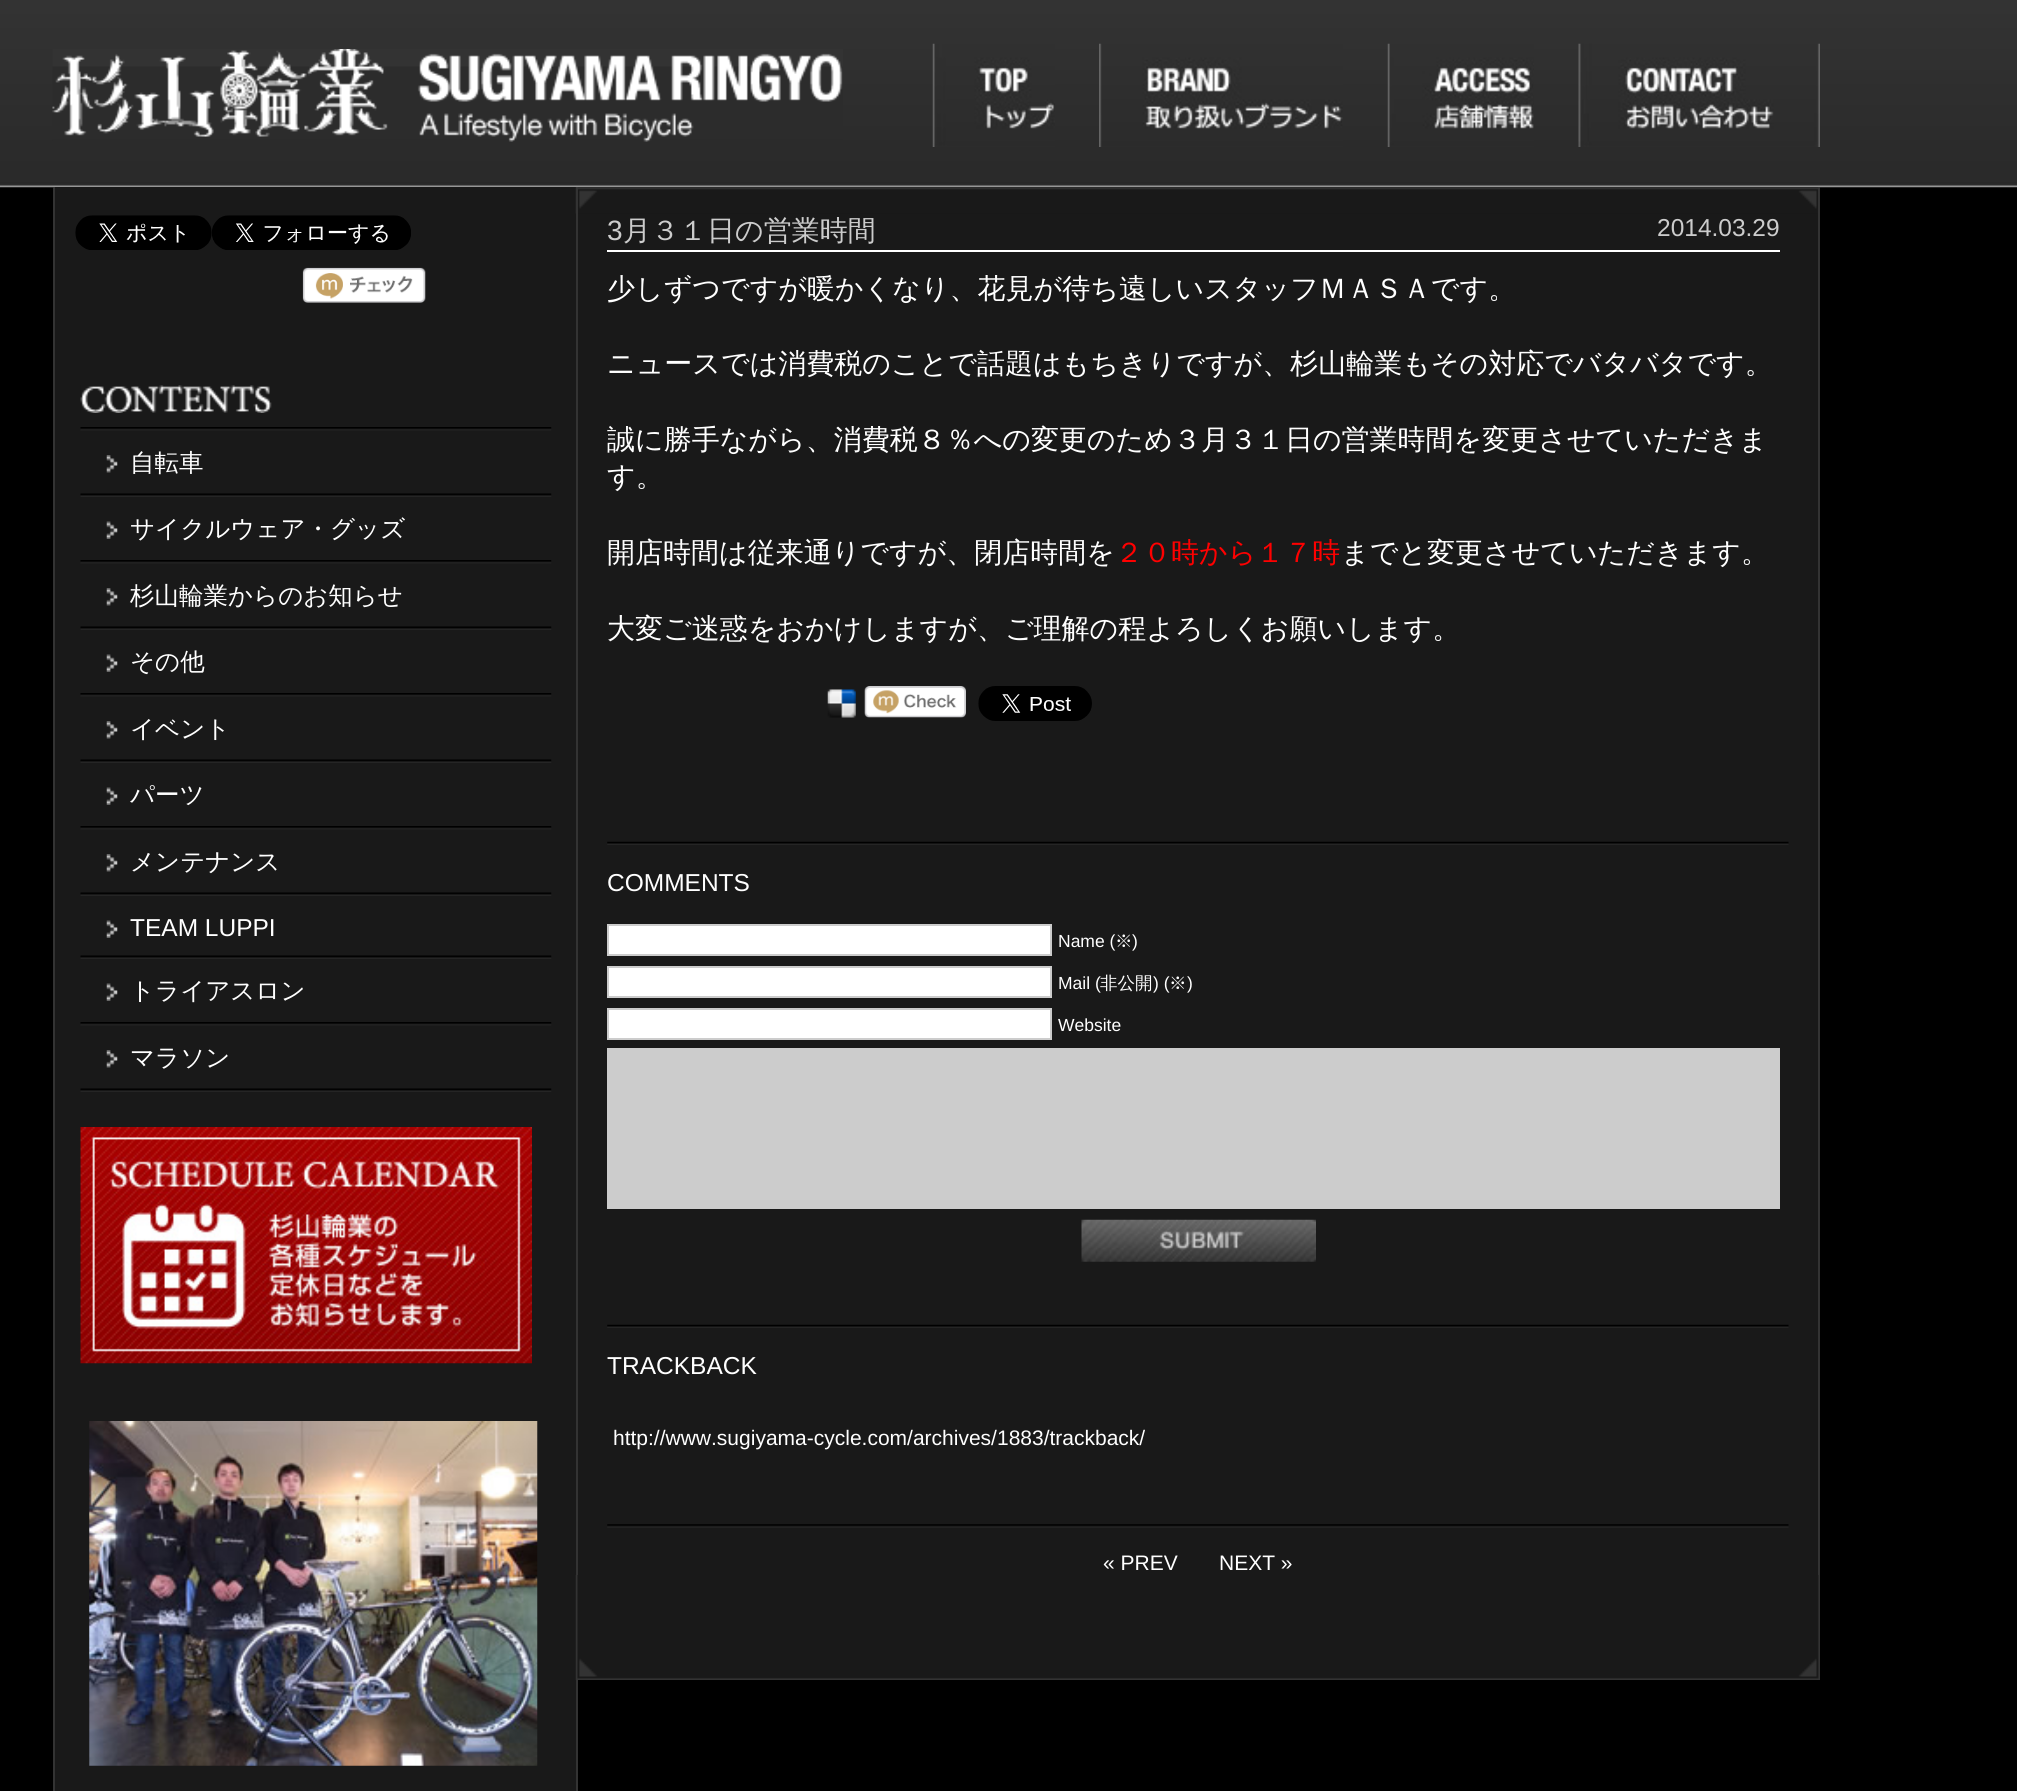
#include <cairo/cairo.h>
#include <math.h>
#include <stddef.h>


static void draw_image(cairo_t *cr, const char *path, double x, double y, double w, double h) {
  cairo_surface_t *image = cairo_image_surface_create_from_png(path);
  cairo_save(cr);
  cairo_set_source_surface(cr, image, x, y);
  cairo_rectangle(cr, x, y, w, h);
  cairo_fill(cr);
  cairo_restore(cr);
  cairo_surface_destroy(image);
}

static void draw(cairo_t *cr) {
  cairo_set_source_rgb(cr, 0, 0, 0);
  cairo_paint(cr);
  draw_image(cr, "images/1.png", 0, 0, 2017, 188);
  draw_image(cr, "images/2.png", 52, 49, 791, 93);
  draw_image(cr, "images/3.png", 932, 43, 123, 104);
  draw_image(cr, "images/4.png", 1099, 43, 244, 104);
  draw_image(cr, "images/5.png", 1387, 43, 147, 104);
  draw_image(cr, "images/6.png", 1578, 43, 242, 104);
  cairo_set_source_rgb(cr, 25 / 255.0, 25 / 255.0, 25 / 255.0);
  cairo_rectangle(cr, 55, 187, 521, 1604);
  cairo_fill(cr);
  cairo_set_source_rgb(cr, 51 / 255.0, 51 / 255.0, 51 / 255.0);
  cairo_rectangle(cr, 576, 1680, 2, 111);
  cairo_fill(cr);
  cairo_rectangle(cr, 53, 187, 2, 1604);
  cairo_fill(cr);
  draw_image(cr, "images/7.png", 75, 215, 137, 35);
  draw_image(cr, "images/8.png", 212, 215, 199, 35);
  draw_image(cr, "images/9.png", 302, 267, 124, 36);
  draw_image(cr, "images/10.png", 80, 427, 472, 4);
  draw_image(cr, "images/11.png", 80, 385, 192, 28);
  draw_image(cr, "images/12.png", 80, 493, 472, 4);
  draw_image(cr, "images/13.png", 106, 455, 12, 18);
  draw_image(cr, "images/10.png", 80, 560, 472, 4);
  draw_image(cr, "images/14.png", 106, 521, 12, 18);
  draw_image(cr, "images/12.png", 80, 626, 472, 4);
  draw_image(cr, "images/13.png", 106, 588, 12, 18);
  draw_image(cr, "images/10.png", 80, 693, 472, 4);
  draw_image(cr, "images/14.png", 106, 654, 12, 18);
  draw_image(cr, "images/12.png", 80, 759, 472, 4);
  draw_image(cr, "images/13.png", 106, 721, 12, 18);
  draw_image(cr, "images/10.png", 80, 826, 472, 4);
  draw_image(cr, "images/14.png", 106, 787, 12, 18);
  draw_image(cr, "images/12.png", 80, 892, 472, 4);
  draw_image(cr, "images/13.png", 106, 854, 12, 18);
  draw_image(cr, "images/12.png", 80, 955, 472, 4);
  draw_image(cr, "images/14.png", 106, 920, 12, 18);
  draw_image(cr, "images/10.png", 80, 1022, 472, 4);
  draw_image(cr, "images/14.png", 106, 983, 12, 18);
  draw_image(cr, "images/12.png", 80, 1088, 472, 4);
  draw_image(cr, "images/13.png", 106, 1050, 12, 18);
  draw_image(cr, "images/15.png", 80, 1127, 452, 237);
  draw_image(cr, "images/16.png", 89, 1421, 449, 345);
  cairo_set_source_rgb(cr, 25 / 255.0, 25 / 255.0, 25 / 255.0);
  cairo_rectangle(cr, 578, 187, 1240, 1388);
  cairo_fill(cr);
  draw_image(cr, "images/17.png", 575, 187, 1243, 27);
  cairo_set_source_rgb(cr, 51 / 255.0, 51 / 255.0, 51 / 255.0);
  cairo_rectangle(cr, 1818, 187, 2, 1493);
  cairo_fill(cr);
  cairo_rectangle(cr, 576, 187, 2, 1388);
  cairo_fill(cr);
  cairo_set_source_rgb(cr, 1, 1, 1);
  cairo_rectangle(cr, 607, 250, 1173, 2);
  cairo_fill(cr);
  draw_image(cr, "images/18.png", 827, 689, 29, 29);
  draw_image(cr, "images/19.png", 864, 686, 102, 32);
  draw_image(cr, "images/20.png", 978, 686, 114, 35);
  draw_image(cr, "images/21.png", 607, 841, 1182, 4);
  cairo_rectangle(cr, 608, 925, 443, 30);
  cairo_fill_preserve(cr);
  cairo_set_source_rgb(cr, 204 / 255.0, 204 / 255.0, 204 / 255.0);
  cairo_stroke(cr);
  cairo_set_source_rgb(cr, 1, 1, 1);
  cairo_rectangle(cr, 608, 967, 443, 30);
  cairo_fill_preserve(cr);
  cairo_set_source_rgb(cr, 204 / 255.0, 204 / 255.0, 204 / 255.0);
  cairo_stroke(cr);
  cairo_set_source_rgb(cr, 1, 1, 1);
  cairo_rectangle(cr, 608, 1009, 443, 30);
  cairo_fill_preserve(cr);
  cairo_set_source_rgb(cr, 204 / 255.0, 204 / 255.0, 204 / 255.0);
  cairo_stroke(cr);
  cairo_rectangle(cr, 607, 1048, 1173, 161);
  cairo_fill(cr);
  draw_image(cr, "images/22.png", 1081, 1219, 235, 43);
  draw_image(cr, "images/21.png", 607, 1324, 1182, 4);
  draw_image(cr, "images/23.png", 607, 1524, 1182, 4);
  draw_image(cr, "images/24.png", 575, 1575, 1244, 105);
  cairo_select_font_face(cr, "WenQuanYi Zen Hei Medium", CAIRO_FONT_SLANT_NORMAL, CAIRO_FONT_WEIGHT_NORMAL);
  cairo_set_font_size(cr, 24.5);
  cairo_set_source_rgb(cr, 1, 1, 1);
  cairo_move_to(cr, 130, 471);
  cairo_show_text(cr, "自転車");
  cairo_move_to(cr, 130, 537);
  cairo_show_text(cr, "サイクルウェア・グッズ");
  cairo_move_to(cr, 130, 604);
  cairo_show_text(cr, "杉山輪業からのお知らせ");
  cairo_move_to(cr, 130, 670);
  cairo_show_text(cr, "その他");
  cairo_move_to(cr, 130, 737);
  cairo_show_text(cr, "イベント");
  cairo_move_to(cr, 130, 803);
  cairo_show_text(cr, "パーツ");
  cairo_move_to(cr, 130, 870);
  cairo_show_text(cr, "メンテナンス");
  cairo_select_font_face(cr, "Liberation Sans", CAIRO_FONT_SLANT_NORMAL, CAIRO_FONT_WEIGHT_NORMAL);
  cairo_move_to(cr, 130, 936);
  cairo_show_text(cr, "TEAM LUPPI");
  cairo_select_font_face(cr, "WenQuanYi Zen Hei Medium", CAIRO_FONT_SLANT_NORMAL, CAIRO_FONT_WEIGHT_NORMAL);
  cairo_move_to(cr, 130, 999);
  cairo_show_text(cr, "トライアスロン");
  cairo_move_to(cr, 130, 1066);
  cairo_show_text(cr, "マラソン");
  cairo_select_font_face(cr, "Liberation Sans", CAIRO_FONT_SLANT_NORMAL, CAIRO_FONT_WEIGHT_NORMAL);
  cairo_set_font_size(cr, 28);
  cairo_set_source_rgb(cr, 204 / 255.0, 204 / 255.0, 204 / 255.0);
  cairo_move_to(cr, 607, 240);
  cairo_show_text(cr, "3");
  cairo_select_font_face(cr, "WenQuanYi Zen Hei Medium", CAIRO_FONT_SLANT_NORMAL, CAIRO_FONT_WEIGHT_NORMAL);
  cairo_move_to(cr, 623, 240);
  cairo_show_text(cr, "月３１日の営業時間");
  cairo_select_font_face(cr, "Liberation Sans", CAIRO_FONT_SLANT_NORMAL, CAIRO_FONT_WEIGHT_NORMAL);
  cairo_set_font_size(cr, 24.5);
  cairo_move_to(cr, 1657, 236);
  cairo_show_text(cr, "2014.03.29");
  cairo_select_font_face(cr, "WenQuanYi Zen Hei Medium", CAIRO_FONT_SLANT_NORMAL, CAIRO_FONT_WEIGHT_NORMAL);
  cairo_set_font_size(cr, 28);
  cairo_set_source_rgb(cr, 1, 1, 1);
  cairo_move_to(cr, 607, 298);
  cairo_show_text(cr, "少しずつですが暖かくなり、花見が待ち遠しいスタッフＭＡＳＡです。");
  cairo_move_to(cr, 607, 373);
  cairo_show_text(cr, "ニュースでは消費税のことで話題はもちきりですが、杉山輪業もその対応でバタバタです。");
  cairo_move_to(cr, 607, 449);
  cairo_show_text(cr, "誠に勝手ながら、消費税８％への変更のため３月３１日の営業時間を変更させていただきま");
  cairo_move_to(cr, 607, 486);
  cairo_show_text(cr, "す。");
  cairo_move_to(cr, 607, 562);
  cairo_show_text(cr, "開店時間は従来通りですが、閉店時間を");
  cairo_set_source_rgb(cr, 1, 0, 0);
  cairo_move_to(cr, 1115, 562);
  cairo_show_text(cr, "２０時から１７時");
  cairo_set_source_rgb(cr, 1, 1, 1);
  cairo_move_to(cr, 1341, 562);
  cairo_show_text(cr, "までと変更させていただきます。");
  cairo_move_to(cr, 607, 638);
  cairo_show_text(cr, "大変ご迷惑をおかけしますが、ご理解の程よろしくお願いします。");
  cairo_select_font_face(cr, "Liberation Sans", CAIRO_FONT_SLANT_NORMAL, CAIRO_FONT_WEIGHT_NORMAL);
  cairo_set_font_size(cr, 24.5);
  cairo_move_to(cr, 607, 891);
  cairo_show_text(cr, "COMMENTS");
  cairo_set_font_size(cr, 17.5);
  cairo_move_to(cr, 1058, 947);
  cairo_show_text(cr, "Name (");
  cairo_select_font_face(cr, "WenQuanYi Zen Hei Medium", CAIRO_FONT_SLANT_NORMAL, CAIRO_FONT_WEIGHT_NORMAL);
  cairo_move_to(cr, 1115, 947);
  cairo_show_text(cr, "※");
  cairo_select_font_face(cr, "Liberation Sans", CAIRO_FONT_SLANT_NORMAL, CAIRO_FONT_WEIGHT_NORMAL);
  cairo_move_to(cr, 1132, 947);
  cairo_show_text(cr, ")");
  cairo_move_to(cr, 1058, 989);
  cairo_show_text(cr, "Mail (");
  cairo_select_font_face(cr, "WenQuanYi Zen Hei Medium", CAIRO_FONT_SLANT_NORMAL, CAIRO_FONT_WEIGHT_NORMAL);
  cairo_move_to(cr, 1100, 989);
  cairo_show_text(cr, "非公開");
  cairo_select_font_face(cr, "Liberation Sans", CAIRO_FONT_SLANT_NORMAL, CAIRO_FONT_WEIGHT_NORMAL);
  cairo_move_to(cr, 1153, 989);
  cairo_show_text(cr, ") (");
  cairo_select_font_face(cr, "WenQuanYi Zen Hei Medium", CAIRO_FONT_SLANT_NORMAL, CAIRO_FONT_WEIGHT_NORMAL);
  cairo_move_to(cr, 1169, 989);
  cairo_show_text(cr, "※");
  cairo_select_font_face(cr, "Liberation Sans", CAIRO_FONT_SLANT_NORMAL, CAIRO_FONT_WEIGHT_NORMAL);
  cairo_move_to(cr, 1187, 989);
  cairo_show_text(cr, ")");
  cairo_move_to(cr, 1058, 1031);
  cairo_show_text(cr, "Website");
  cairo_set_font_size(cr, 24.5);
  cairo_move_to(cr, 607, 1374);
  cairo_show_text(cr, "TRACKBACK");
  cairo_set_font_size(cr, 21);
  cairo_move_to(cr, 613, 1445);
  cairo_show_text(cr, "http://www.sugiyama-cycle.com/archives/1883/trackback/");
  cairo_move_to(cr, 1103, 1570);
  cairo_show_text(cr, "« PREV");
  cairo_move_to(cr, 1219, 1570);
  cairo_show_text(cr, "NEXT »");
}

int main(void) {
  cairo_surface_t *surface = cairo_image_surface_create(CAIRO_FORMAT_RGB24, 2017, 1791);
  cairo_t *cr = cairo_create(surface);
  cairo_font_options_t *options = cairo_font_options_create();
  cairo_font_options_set_hint_metrics(options, CAIRO_HINT_METRICS_OFF);
  cairo_font_options_set_hint_style(options, CAIRO_HINT_STYLE_NONE);
  cairo_set_font_options(cr, options);
  cairo_set_miter_limit(cr, 4);
  draw(cr);
  cairo_surface_write_to_png(surface, "out.png");
  cairo_font_options_destroy(options);
  cairo_destroy(cr);
  cairo_surface_destroy(surface);
  return 0;
}
